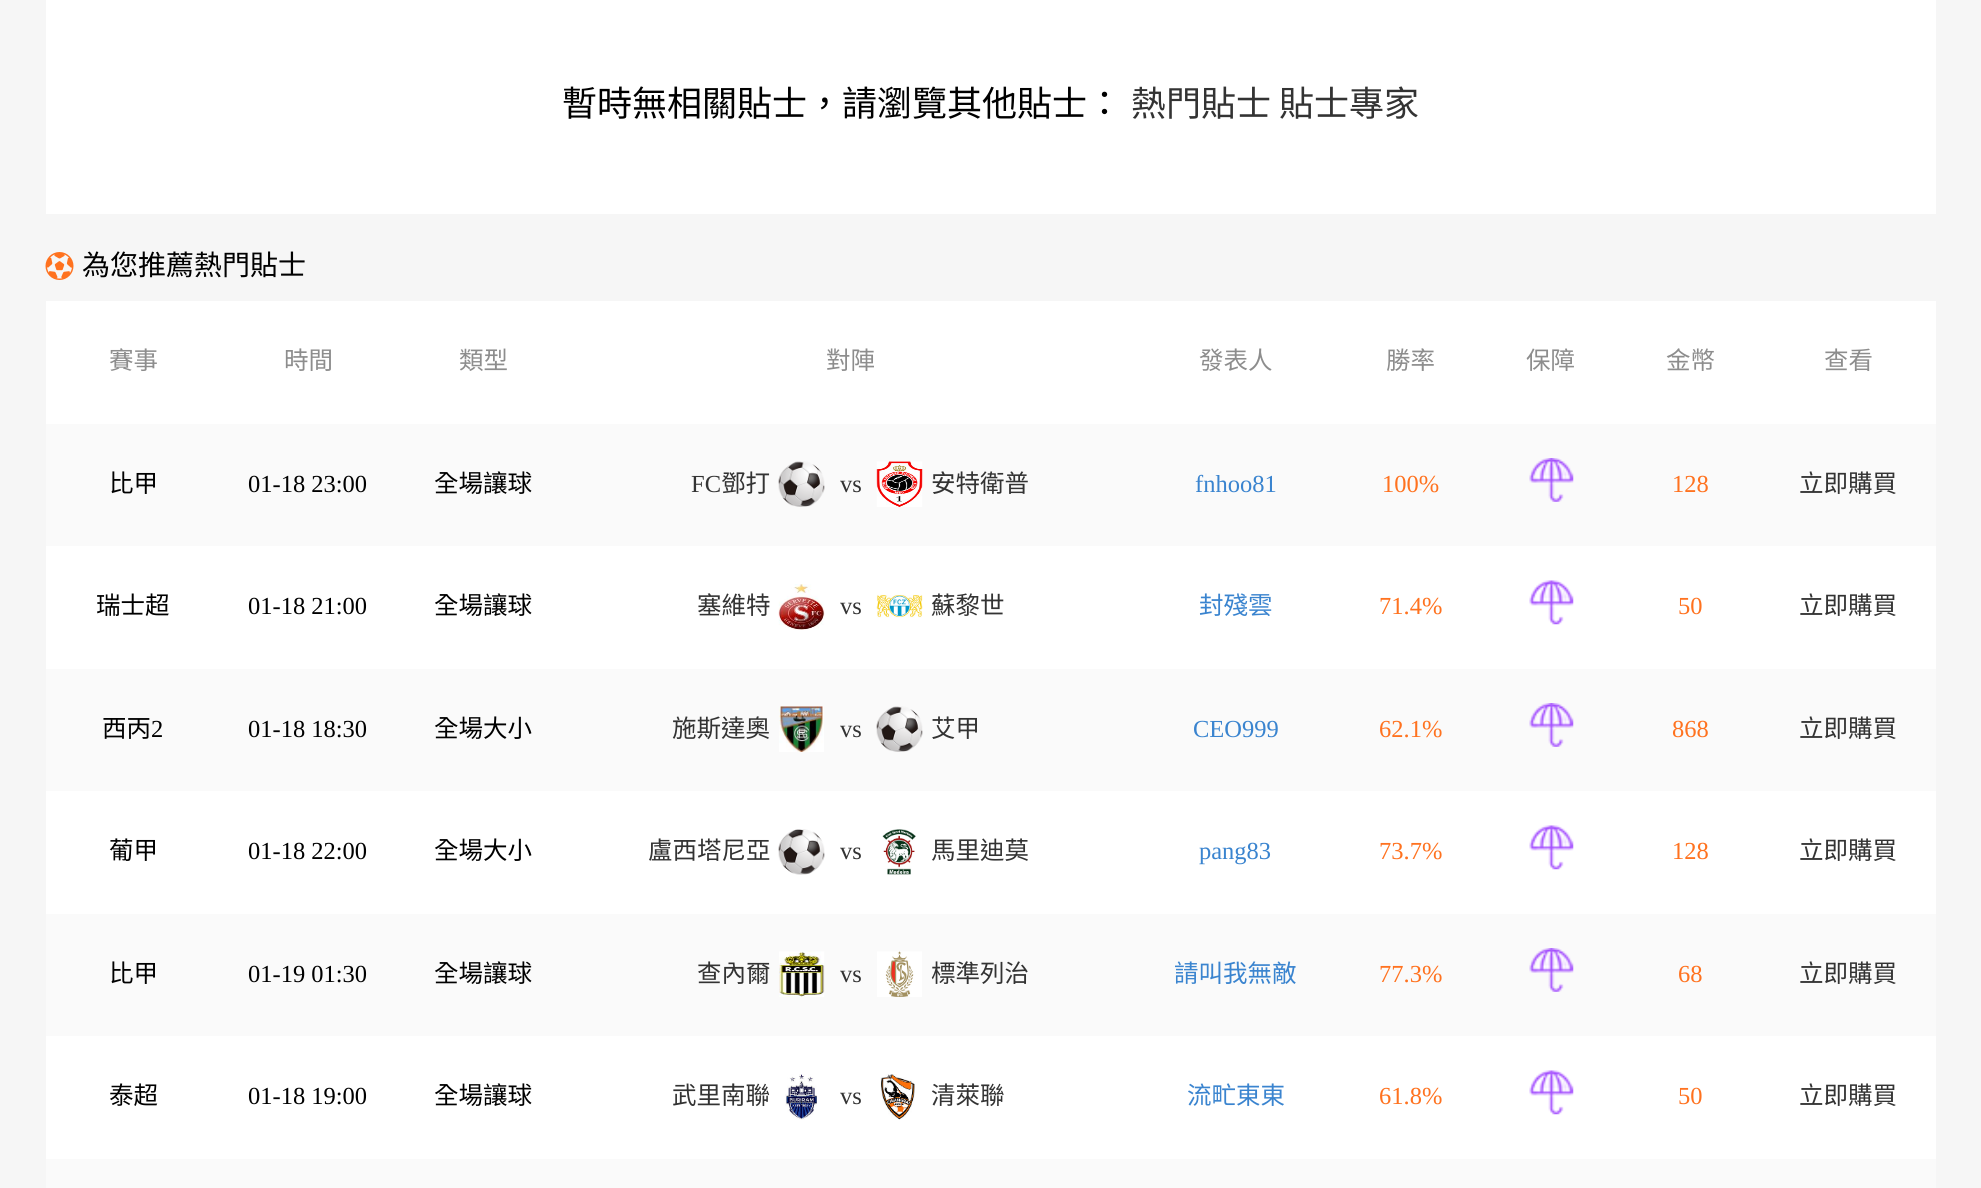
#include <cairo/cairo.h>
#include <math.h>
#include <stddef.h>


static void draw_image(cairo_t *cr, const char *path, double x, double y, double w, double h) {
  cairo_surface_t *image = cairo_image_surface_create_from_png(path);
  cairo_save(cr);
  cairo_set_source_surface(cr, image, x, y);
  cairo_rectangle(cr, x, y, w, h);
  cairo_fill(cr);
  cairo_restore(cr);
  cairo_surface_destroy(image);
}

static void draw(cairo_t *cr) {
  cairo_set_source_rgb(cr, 246 / 255.0, 246 / 255.0, 246 / 255.0);
  cairo_paint(cr);
  cairo_set_source_rgb(cr, 1, 1, 1);
  cairo_rectangle(cr, 46, 0, 1890, 214);
  cairo_fill(cr);
  draw_image(cr, "images/1.png", 45, 252, 29, 28);
  cairo_rectangle(cr, 46, 301, 1890, 858);
  cairo_fill(cr);
  cairo_set_source_rgb(cr, 250 / 255.0, 250 / 255.0, 250 / 255.0);
  cairo_rectangle(cr, 46, 424, 1890, 122);
  cairo_fill(cr);
  draw_image(cr, "images/2.png", 778, 461, 47, 46);
  draw_image(cr, "images/3.png", 876, 461, 47, 46);
  draw_image(cr, "images/4.png", 1529, 458, 45, 44);
  draw_image(cr, "images/5.png", 778, 584, 47, 46);
  draw_image(cr, "images/6.png", 876, 594, 47, 24);
  draw_image(cr, "images/7.png", 1529, 580, 45, 45);
  cairo_rectangle(cr, 46, 669, 1890, 122);
  cairo_fill(cr);
  draw_image(cr, "images/8.png", 779, 706, 45, 46);
  draw_image(cr, "images/9.png", 876, 706, 47, 46);
  draw_image(cr, "images/4.png", 1529, 703, 45, 44);
  draw_image(cr, "images/10.png", 778, 829, 47, 46);
  draw_image(cr, "images/11.png", 882, 829, 34, 46);
  draw_image(cr, "images/7.png", 1529, 825, 45, 45);
  cairo_rectangle(cr, 46, 914, 1890, 122);
  cairo_fill(cr);
  draw_image(cr, "images/12.png", 779, 951, 46, 46);
  draw_image(cr, "images/13.png", 877, 951, 45, 46);
  draw_image(cr, "images/4.png", 1529, 948, 45, 44);
  draw_image(cr, "images/14.png", 785, 1074, 32, 46);
  draw_image(cr, "images/15.png", 880, 1074, 35, 46);
  draw_image(cr, "images/7.png", 1529, 1070, 45, 45);
  cairo_rectangle(cr, 46, 1159, 1890, 29);
  cairo_fill(cr);
  cairo_select_font_face(cr, "Noto Sans CJK HK", CAIRO_FONT_SLANT_NORMAL, CAIRO_FONT_WEIGHT_NORMAL);
  cairo_set_font_size(cr, 35);
  cairo_set_source_rgb(cr, 0, 0, 0);
  cairo_move_to(cr, 562, 116);
  cairo_show_text(cr, "暫時無相關貼士，請瀏覽其他貼士：");
  cairo_set_source_rgb(cr, 51 / 255.0, 51 / 255.0, 51 / 255.0);
  cairo_move_to(cr, 1131, 116);
  cairo_show_text(cr, "熱門貼士");
  cairo_move_to(cr, 1279, 116);
  cairo_show_text(cr, "貼士專家");
  cairo_set_font_size(cr, 28);
  cairo_set_source_rgb(cr, 0, 0, 0);
  cairo_move_to(cr, 82, 275);
  cairo_show_text(cr, "為您推薦熱門貼士");
  cairo_set_font_size(cr, 24.5);
  cairo_set_source_rgb(cr, 141 / 255.0, 141 / 255.0, 141 / 255.0);
  cairo_move_to(cr, 109, 369);
  cairo_show_text(cr, "賽事");
  cairo_move_to(cr, 284, 369);
  cairo_show_text(cr, "時間");
  cairo_move_to(cr, 459, 369);
  cairo_show_text(cr, "類型");
  cairo_move_to(cr, 826, 369);
  cairo_show_text(cr, "對陣");
  cairo_move_to(cr, 1199, 369);
  cairo_show_text(cr, "發表人");
  cairo_move_to(cr, 1386, 369);
  cairo_show_text(cr, "勝率");
  cairo_move_to(cr, 1526, 369);
  cairo_show_text(cr, "保障");
  cairo_move_to(cr, 1666, 369);
  cairo_show_text(cr, "金幣");
  cairo_move_to(cr, 1824, 369);
  cairo_show_text(cr, "查看");
  cairo_set_source_rgb(cr, 0, 0, 0);
  cairo_move_to(cr, 109, 492);
  cairo_show_text(cr, "比甲");
  cairo_select_font_face(cr, "Liberation Serif", CAIRO_FONT_SLANT_NORMAL, CAIRO_FONT_WEIGHT_NORMAL);
  cairo_move_to(cr, 248, 492);
  cairo_show_text(cr, "01-18 23:00");
  cairo_select_font_face(cr, "Noto Sans CJK HK", CAIRO_FONT_SLANT_NORMAL, CAIRO_FONT_WEIGHT_NORMAL);
  cairo_move_to(cr, 434, 492);
  cairo_show_text(cr, "全場讓球");
  cairo_select_font_face(cr, "Liberation Serif", CAIRO_FONT_SLANT_NORMAL, CAIRO_FONT_WEIGHT_NORMAL);
  cairo_set_source_rgb(cr, 51 / 255.0, 51 / 255.0, 51 / 255.0);
  cairo_move_to(cr, 691, 492);
  cairo_show_text(cr, "FC");
  cairo_select_font_face(cr, "Noto Sans CJK HK", CAIRO_FONT_SLANT_NORMAL, CAIRO_FONT_WEIGHT_NORMAL);
  cairo_move_to(cr, 721, 492);
  cairo_show_text(cr, "鄧打");
  cairo_select_font_face(cr, "Liberation Serif", CAIRO_FONT_SLANT_NORMAL, CAIRO_FONT_WEIGHT_NORMAL);
  cairo_move_to(cr, 840, 492);
  cairo_show_text(cr, "vs");
  cairo_select_font_face(cr, "Noto Sans CJK HK", CAIRO_FONT_SLANT_NORMAL, CAIRO_FONT_WEIGHT_NORMAL);
  cairo_move_to(cr, 931, 492);
  cairo_show_text(cr, "安特衛普");
  cairo_select_font_face(cr, "Liberation Serif", CAIRO_FONT_SLANT_NORMAL, CAIRO_FONT_WEIGHT_NORMAL);
  cairo_set_source_rgb(cr, 58 / 255.0, 132 / 255.0, 207 / 255.0);
  cairo_move_to(cr, 1195, 492);
  cairo_show_text(cr, "fnhoo81");
  cairo_set_source_rgb(cr, 1, 114 / 255.0, 31 / 255.0);
  cairo_move_to(cr, 1382, 492);
  cairo_show_text(cr, "100%");
  cairo_move_to(cr, 1672, 492);
  cairo_show_text(cr, "128");
  cairo_select_font_face(cr, "Noto Sans CJK HK", CAIRO_FONT_SLANT_NORMAL, CAIRO_FONT_WEIGHT_NORMAL);
  cairo_set_source_rgb(cr, 51 / 255.0, 51 / 255.0, 51 / 255.0);
  cairo_move_to(cr, 1799, 492);
  cairo_show_text(cr, "立即購買");
  cairo_set_source_rgb(cr, 0, 0, 0);
  cairo_move_to(cr, 96, 614);
  cairo_show_text(cr, "瑞士超");
  cairo_select_font_face(cr, "Liberation Serif", CAIRO_FONT_SLANT_NORMAL, CAIRO_FONT_WEIGHT_NORMAL);
  cairo_move_to(cr, 248, 614);
  cairo_show_text(cr, "01-18 21:00");
  cairo_select_font_face(cr, "Noto Sans CJK HK", CAIRO_FONT_SLANT_NORMAL, CAIRO_FONT_WEIGHT_NORMAL);
  cairo_move_to(cr, 434, 614);
  cairo_show_text(cr, "全場讓球");
  cairo_set_source_rgb(cr, 51 / 255.0, 51 / 255.0, 51 / 255.0);
  cairo_move_to(cr, 697, 614);
  cairo_show_text(cr, "塞維特");
  cairo_select_font_face(cr, "Liberation Serif", CAIRO_FONT_SLANT_NORMAL, CAIRO_FONT_WEIGHT_NORMAL);
  cairo_move_to(cr, 840, 614);
  cairo_show_text(cr, "vs");
  cairo_select_font_face(cr, "Noto Sans CJK HK", CAIRO_FONT_SLANT_NORMAL, CAIRO_FONT_WEIGHT_NORMAL);
  cairo_move_to(cr, 931, 614);
  cairo_show_text(cr, "蘇黎世");
  cairo_set_source_rgb(cr, 58 / 255.0, 132 / 255.0, 207 / 255.0);
  cairo_move_to(cr, 1199, 614);
  cairo_show_text(cr, "封殘雲");
  cairo_select_font_face(cr, "Liberation Serif", CAIRO_FONT_SLANT_NORMAL, CAIRO_FONT_WEIGHT_NORMAL);
  cairo_set_source_rgb(cr, 1, 114 / 255.0, 31 / 255.0);
  cairo_move_to(cr, 1379, 614);
  cairo_show_text(cr, "71.4%");
  cairo_move_to(cr, 1678, 614);
  cairo_show_text(cr, "50");
  cairo_select_font_face(cr, "Noto Sans CJK HK", CAIRO_FONT_SLANT_NORMAL, CAIRO_FONT_WEIGHT_NORMAL);
  cairo_set_source_rgb(cr, 51 / 255.0, 51 / 255.0, 51 / 255.0);
  cairo_move_to(cr, 1799, 614);
  cairo_show_text(cr, "立即購買");
  cairo_set_source_rgb(cr, 0, 0, 0);
  cairo_move_to(cr, 102, 737);
  cairo_show_text(cr, "西丙");
  cairo_select_font_face(cr, "Liberation Serif", CAIRO_FONT_SLANT_NORMAL, CAIRO_FONT_WEIGHT_NORMAL);
  cairo_move_to(cr, 151, 737);
  cairo_show_text(cr, "2");
  cairo_move_to(cr, 248, 737);
  cairo_show_text(cr, "01-18 18:30");
  cairo_select_font_face(cr, "Noto Sans CJK HK", CAIRO_FONT_SLANT_NORMAL, CAIRO_FONT_WEIGHT_NORMAL);
  cairo_move_to(cr, 434, 737);
  cairo_show_text(cr, "全場大小");
  cairo_set_source_rgb(cr, 51 / 255.0, 51 / 255.0, 51 / 255.0);
  cairo_move_to(cr, 672, 737);
  cairo_show_text(cr, "施斯達奧");
  cairo_select_font_face(cr, "Liberation Serif", CAIRO_FONT_SLANT_NORMAL, CAIRO_FONT_WEIGHT_NORMAL);
  cairo_move_to(cr, 840, 737);
  cairo_show_text(cr, "vs");
  cairo_select_font_face(cr, "Noto Sans CJK HK", CAIRO_FONT_SLANT_NORMAL, CAIRO_FONT_WEIGHT_NORMAL);
  cairo_move_to(cr, 931, 737);
  cairo_show_text(cr, "艾甲");
  cairo_select_font_face(cr, "Liberation Serif", CAIRO_FONT_SLANT_NORMAL, CAIRO_FONT_WEIGHT_NORMAL);
  cairo_set_source_rgb(cr, 58 / 255.0, 132 / 255.0, 207 / 255.0);
  cairo_move_to(cr, 1193, 737);
  cairo_show_text(cr, "CEO999");
  cairo_set_source_rgb(cr, 1, 114 / 255.0, 31 / 255.0);
  cairo_move_to(cr, 1379, 737);
  cairo_show_text(cr, "62.1%");
  cairo_move_to(cr, 1672, 737);
  cairo_show_text(cr, "868");
  cairo_select_font_face(cr, "Noto Sans CJK HK", CAIRO_FONT_SLANT_NORMAL, CAIRO_FONT_WEIGHT_NORMAL);
  cairo_set_source_rgb(cr, 51 / 255.0, 51 / 255.0, 51 / 255.0);
  cairo_move_to(cr, 1799, 737);
  cairo_show_text(cr, "立即購買");
  cairo_set_source_rgb(cr, 0, 0, 0);
  cairo_move_to(cr, 109, 859);
  cairo_show_text(cr, "葡甲");
  cairo_select_font_face(cr, "Liberation Serif", CAIRO_FONT_SLANT_NORMAL, CAIRO_FONT_WEIGHT_NORMAL);
  cairo_move_to(cr, 248, 859);
  cairo_show_text(cr, "01-18 22:00");
  cairo_select_font_face(cr, "Noto Sans CJK HK", CAIRO_FONT_SLANT_NORMAL, CAIRO_FONT_WEIGHT_NORMAL);
  cairo_move_to(cr, 434, 859);
  cairo_show_text(cr, "全場大小");
  cairo_set_source_rgb(cr, 51 / 255.0, 51 / 255.0, 51 / 255.0);
  cairo_move_to(cr, 648, 859);
  cairo_show_text(cr, "盧西塔尼亞");
  cairo_select_font_face(cr, "Liberation Serif", CAIRO_FONT_SLANT_NORMAL, CAIRO_FONT_WEIGHT_NORMAL);
  cairo_move_to(cr, 840, 859);
  cairo_show_text(cr, "vs");
  cairo_select_font_face(cr, "Noto Sans CJK HK", CAIRO_FONT_SLANT_NORMAL, CAIRO_FONT_WEIGHT_NORMAL);
  cairo_move_to(cr, 931, 859);
  cairo_show_text(cr, "馬里迪莫");
  cairo_select_font_face(cr, "Liberation Serif", CAIRO_FONT_SLANT_NORMAL, CAIRO_FONT_WEIGHT_NORMAL);
  cairo_set_source_rgb(cr, 58 / 255.0, 132 / 255.0, 207 / 255.0);
  cairo_move_to(cr, 1199, 859);
  cairo_show_text(cr, "pang83");
  cairo_set_source_rgb(cr, 1, 114 / 255.0, 31 / 255.0);
  cairo_move_to(cr, 1379, 859);
  cairo_show_text(cr, "73.7%");
  cairo_move_to(cr, 1672, 859);
  cairo_show_text(cr, "128");
  cairo_select_font_face(cr, "Noto Sans CJK HK", CAIRO_FONT_SLANT_NORMAL, CAIRO_FONT_WEIGHT_NORMAL);
  cairo_set_source_rgb(cr, 51 / 255.0, 51 / 255.0, 51 / 255.0);
  cairo_move_to(cr, 1799, 859);
  cairo_show_text(cr, "立即購買");
  cairo_set_source_rgb(cr, 0, 0, 0);
  cairo_move_to(cr, 109, 982);
  cairo_show_text(cr, "比甲");
  cairo_select_font_face(cr, "Liberation Serif", CAIRO_FONT_SLANT_NORMAL, CAIRO_FONT_WEIGHT_NORMAL);
  cairo_move_to(cr, 248, 982);
  cairo_show_text(cr, "01-19 01:30");
  cairo_select_font_face(cr, "Noto Sans CJK HK", CAIRO_FONT_SLANT_NORMAL, CAIRO_FONT_WEIGHT_NORMAL);
  cairo_move_to(cr, 434, 982);
  cairo_show_text(cr, "全場讓球");
  cairo_set_source_rgb(cr, 51 / 255.0, 51 / 255.0, 51 / 255.0);
  cairo_move_to(cr, 697, 982);
  cairo_show_text(cr, "查內爾");
  cairo_select_font_face(cr, "Liberation Serif", CAIRO_FONT_SLANT_NORMAL, CAIRO_FONT_WEIGHT_NORMAL);
  cairo_move_to(cr, 840, 982);
  cairo_show_text(cr, "vs");
  cairo_select_font_face(cr, "Noto Sans CJK HK", CAIRO_FONT_SLANT_NORMAL, CAIRO_FONT_WEIGHT_NORMAL);
  cairo_move_to(cr, 931, 982);
  cairo_show_text(cr, "標準列治");
  cairo_set_source_rgb(cr, 58 / 255.0, 132 / 255.0, 207 / 255.0);
  cairo_move_to(cr, 1174, 982);
  cairo_show_text(cr, "請叫我無敵");
  cairo_select_font_face(cr, "Liberation Serif", CAIRO_FONT_SLANT_NORMAL, CAIRO_FONT_WEIGHT_NORMAL);
  cairo_set_source_rgb(cr, 1, 114 / 255.0, 31 / 255.0);
  cairo_move_to(cr, 1379, 982);
  cairo_show_text(cr, "77.3%");
  cairo_move_to(cr, 1678, 982);
  cairo_show_text(cr, "68");
  cairo_select_font_face(cr, "Noto Sans CJK HK", CAIRO_FONT_SLANT_NORMAL, CAIRO_FONT_WEIGHT_NORMAL);
  cairo_set_source_rgb(cr, 51 / 255.0, 51 / 255.0, 51 / 255.0);
  cairo_move_to(cr, 1799, 982);
  cairo_show_text(cr, "立即購買");
  cairo_set_source_rgb(cr, 0, 0, 0);
  cairo_move_to(cr, 109, 1104);
  cairo_show_text(cr, "泰超");
  cairo_select_font_face(cr, "Liberation Serif", CAIRO_FONT_SLANT_NORMAL, CAIRO_FONT_WEIGHT_NORMAL);
  cairo_move_to(cr, 248, 1104);
  cairo_show_text(cr, "01-18 19:00");
  cairo_select_font_face(cr, "Noto Sans CJK HK", CAIRO_FONT_SLANT_NORMAL, CAIRO_FONT_WEIGHT_NORMAL);
  cairo_move_to(cr, 434, 1104);
  cairo_show_text(cr, "全場讓球");
  cairo_set_source_rgb(cr, 51 / 255.0, 51 / 255.0, 51 / 255.0);
  cairo_move_to(cr, 672, 1104);
  cairo_show_text(cr, "武里南聯");
  cairo_select_font_face(cr, "Liberation Serif", CAIRO_FONT_SLANT_NORMAL, CAIRO_FONT_WEIGHT_NORMAL);
  cairo_move_to(cr, 840, 1104);
  cairo_show_text(cr, "vs");
  cairo_select_font_face(cr, "Noto Sans CJK HK", CAIRO_FONT_SLANT_NORMAL, CAIRO_FONT_WEIGHT_NORMAL);
  cairo_move_to(cr, 931, 1104);
  cairo_show_text(cr, "清萊聯");
  cairo_set_source_rgb(cr, 58 / 255.0, 132 / 255.0, 207 / 255.0);
  cairo_move_to(cr, 1187, 1104);
  cairo_show_text(cr, "流甿東東");
  cairo_select_font_face(cr, "Liberation Serif", CAIRO_FONT_SLANT_NORMAL, CAIRO_FONT_WEIGHT_NORMAL);
  cairo_set_source_rgb(cr, 1, 114 / 255.0, 31 / 255.0);
  cairo_move_to(cr, 1379, 1104);
  cairo_show_text(cr, "61.8%");
  cairo_move_to(cr, 1678, 1104);
  cairo_show_text(cr, "50");
  cairo_select_font_face(cr, "Noto Sans CJK HK", CAIRO_FONT_SLANT_NORMAL, CAIRO_FONT_WEIGHT_NORMAL);
  cairo_set_source_rgb(cr, 51 / 255.0, 51 / 255.0, 51 / 255.0);
  cairo_move_to(cr, 1799, 1104);
  cairo_show_text(cr, "立即購買");
}

int main(void) {
  cairo_surface_t *surface = cairo_image_surface_create(CAIRO_FORMAT_RGB24, 1981, 1188);
  cairo_t *cr = cairo_create(surface);
  cairo_font_options_t *options = cairo_font_options_create();
  cairo_font_options_set_hint_metrics(options, CAIRO_HINT_METRICS_OFF);
  cairo_font_options_set_hint_style(options, CAIRO_HINT_STYLE_NONE);
  cairo_set_font_options(cr, options);
  cairo_set_miter_limit(cr, 4);
  draw(cr);
  cairo_surface_write_to_png(surface, "out.png");
  cairo_font_options_destroy(options);
  cairo_destroy(cr);
  cairo_surface_destroy(surface);
  return 0;
}
